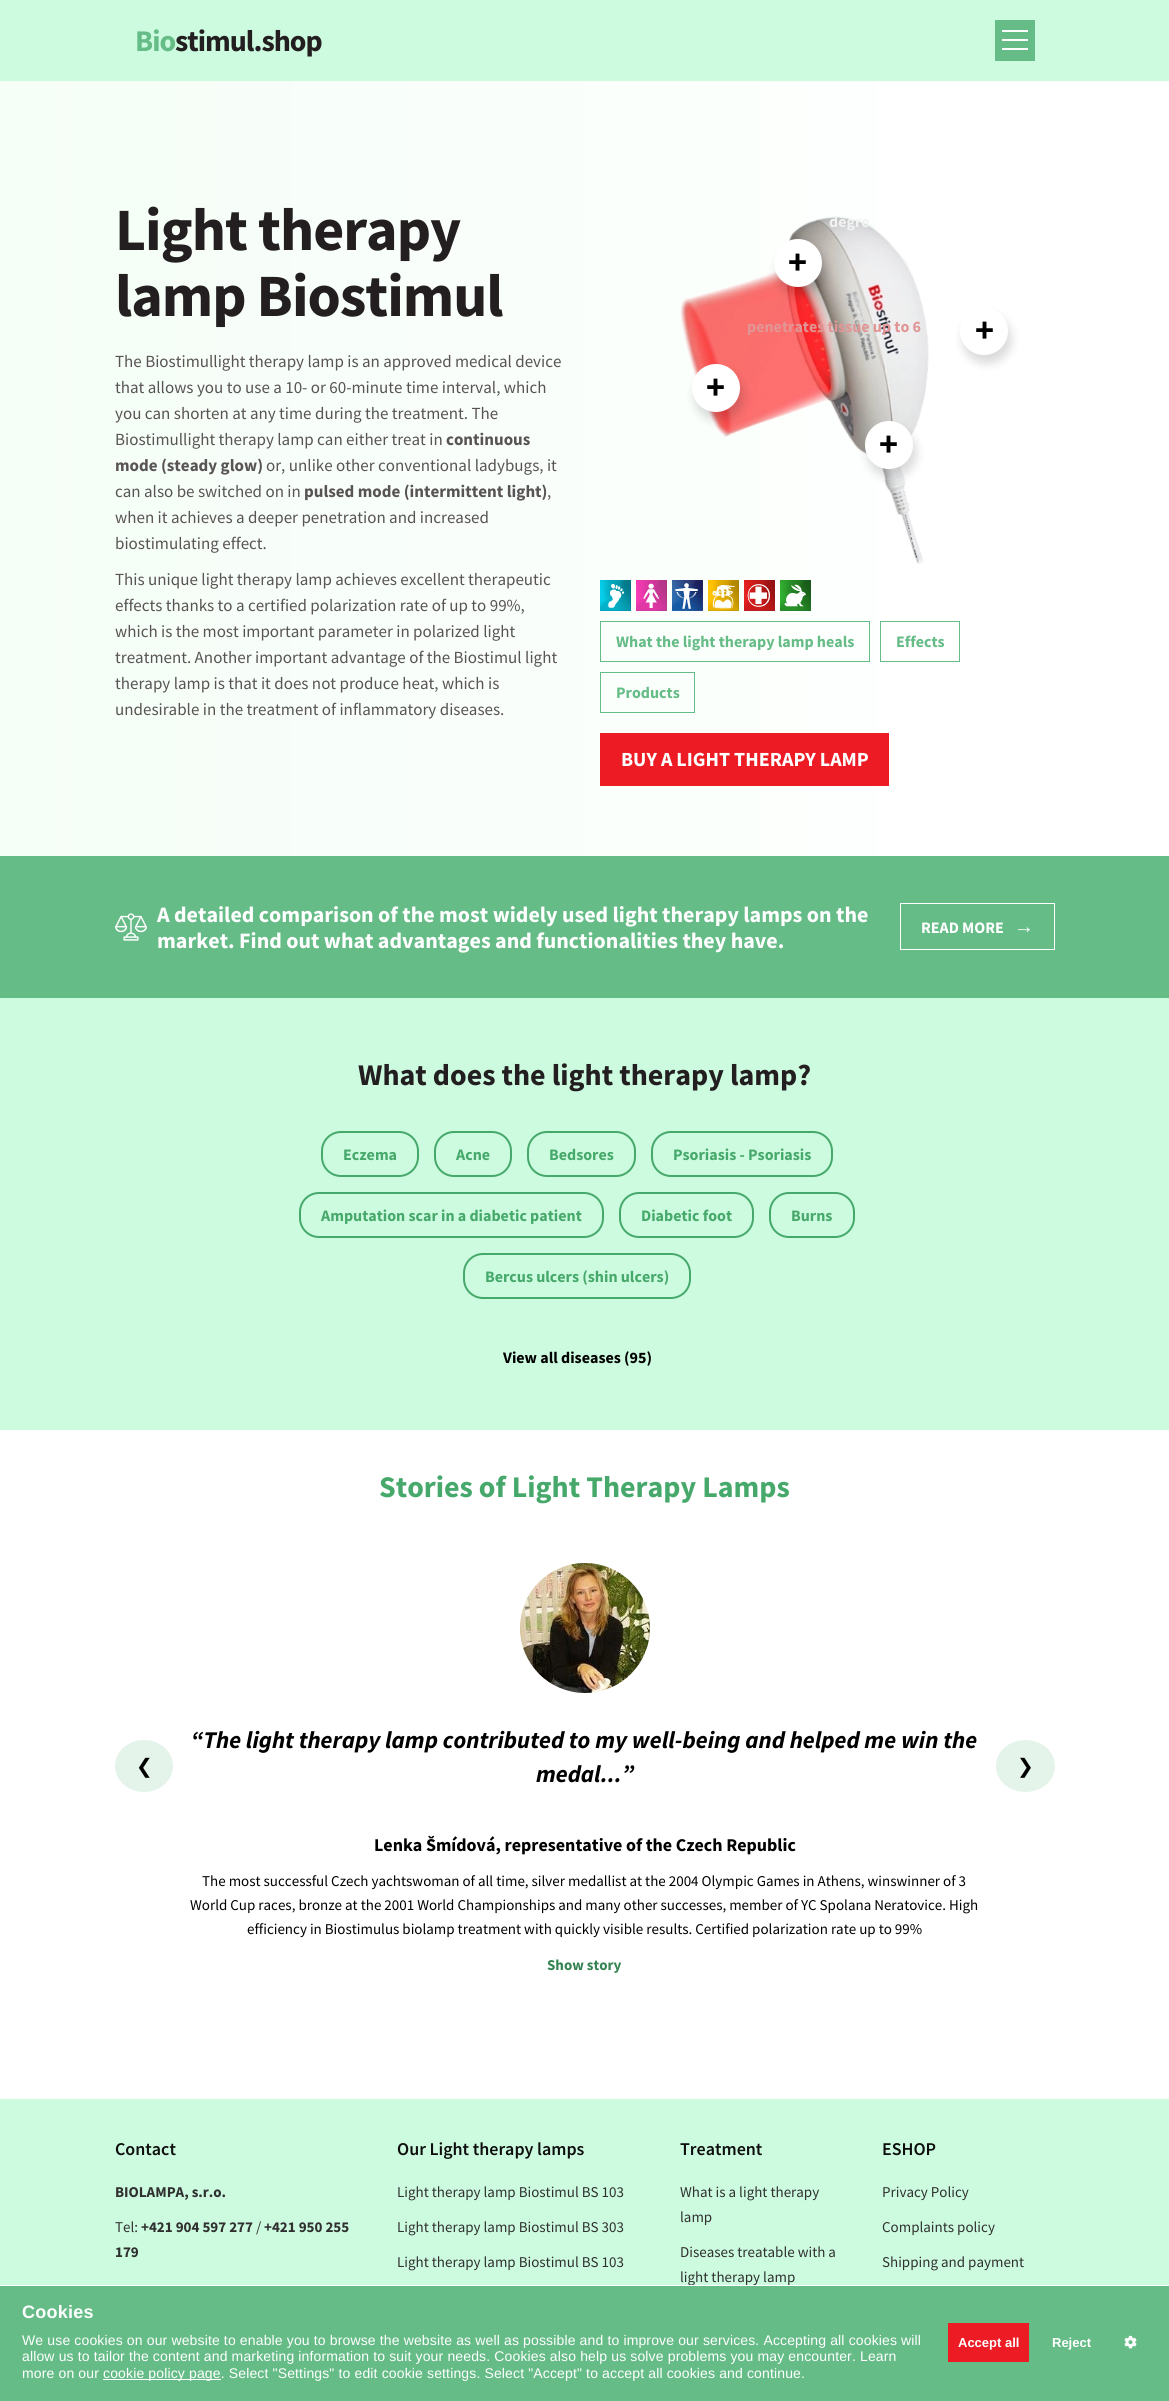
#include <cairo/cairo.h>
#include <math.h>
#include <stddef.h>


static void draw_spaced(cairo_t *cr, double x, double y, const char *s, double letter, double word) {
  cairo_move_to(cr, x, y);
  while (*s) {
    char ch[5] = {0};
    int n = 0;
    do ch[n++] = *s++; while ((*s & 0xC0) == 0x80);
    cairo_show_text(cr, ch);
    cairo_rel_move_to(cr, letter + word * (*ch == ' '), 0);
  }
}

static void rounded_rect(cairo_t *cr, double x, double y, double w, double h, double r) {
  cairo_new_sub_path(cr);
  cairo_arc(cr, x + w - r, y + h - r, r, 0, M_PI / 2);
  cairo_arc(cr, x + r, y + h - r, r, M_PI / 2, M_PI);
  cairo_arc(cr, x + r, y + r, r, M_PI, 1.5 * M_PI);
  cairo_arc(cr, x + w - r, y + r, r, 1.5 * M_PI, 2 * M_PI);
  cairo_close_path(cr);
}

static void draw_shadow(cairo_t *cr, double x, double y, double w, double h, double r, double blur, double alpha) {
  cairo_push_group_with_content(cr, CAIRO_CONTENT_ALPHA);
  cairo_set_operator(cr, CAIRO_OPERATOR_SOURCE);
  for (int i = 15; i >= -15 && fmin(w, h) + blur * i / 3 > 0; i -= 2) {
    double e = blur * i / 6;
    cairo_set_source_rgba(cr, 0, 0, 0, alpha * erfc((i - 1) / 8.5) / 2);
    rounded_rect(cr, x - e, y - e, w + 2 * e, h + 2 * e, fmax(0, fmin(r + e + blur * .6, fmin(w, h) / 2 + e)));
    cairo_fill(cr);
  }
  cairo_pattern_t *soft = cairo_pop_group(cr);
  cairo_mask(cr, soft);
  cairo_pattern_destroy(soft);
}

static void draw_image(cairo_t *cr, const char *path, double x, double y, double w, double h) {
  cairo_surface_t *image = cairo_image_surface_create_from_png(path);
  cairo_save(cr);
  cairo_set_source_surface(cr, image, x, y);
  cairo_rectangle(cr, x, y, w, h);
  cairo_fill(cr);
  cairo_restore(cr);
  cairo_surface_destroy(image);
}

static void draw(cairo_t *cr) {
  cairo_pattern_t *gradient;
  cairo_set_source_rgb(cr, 1, 1, 1);
  cairo_paint(cr);
  cairo_set_source_rgb(cr, 205 / 255.0, 251 / 255.0, 223 / 255.0);
  cairo_rectangle(cr, 0, 0, 1169, 81);
  cairo_fill(cr);
  cairo_set_source_rgb(cr, 102 / 255.0, 188 / 255.0, 135 / 255.0);
  cairo_rectangle(cr, 995, 20, 40, 41);
  cairo_fill(cr);
  cairo_set_source_rgb(cr, 1, 1, 1);
  cairo_rectangle(cr, 1002, 39, 26, 2);
  cairo_fill(cr);
  cairo_rectangle(cr, 1002, 30, 26, 2);
  cairo_fill(cr);
  cairo_rectangle(cr, 1002, 48, 26, 2);
  cairo_fill(cr);
  gradient = cairo_pattern_create_linear(0, 540, 1169, 540);
  cairo_pattern_add_color_stop_rgba(gradient, 0, 245 / 255.0, 254 / 255.0, 247 / 255.0, 1);
  cairo_pattern_add_color_stop_rgba(gradient, 1, 1, 1, 1, 1);
  cairo_set_source(cr, gradient);
  cairo_pattern_destroy(gradient);
  cairo_rectangle(cr, 0, 81, 877, 775);
  cairo_fill(cr);
  draw_image(cr, "images/1.png", 680, 216, 249, 348);
  cairo_set_source_rgb(cr, 0, 0, 0);
  draw_shadow(cr, 777, 247, 48, 48, 24, 5, 0.15);
  cairo_set_source_rgb(cr, 1, 1, 1);
  cairo_arc(cr, 798, 263, 24, 0, 2 * M_PI);
  cairo_fill(cr);
  cairo_set_source_rgb(cr, 0, 0, 0);
  draw_shadow(cr, 695, 372, 48, 48, 24, 5, 0.15);
  cairo_set_source_rgb(cr, 1, 1, 1);
  cairo_arc(cr, 716, 388, 24, 0, 2 * M_PI);
  cairo_fill(cr);
  cairo_set_source_rgb(cr, 0, 0, 0);
  draw_shadow(cr, 963, 315, 48, 48, 24, 5, 0.15);
  cairo_set_source_rgb(cr, 1, 1, 1);
  cairo_arc(cr, 984, 331, 24, 0, 2 * M_PI);
  cairo_fill(cr);
  cairo_set_source_rgb(cr, 0, 0, 0);
  draw_shadow(cr, 868, 429, 48, 48, 24, 5, 0.15);
  cairo_set_source_rgb(cr, 1, 1, 1);
  cairo_arc(cr, 889, 445, 24, 0, 2 * M_PI);
  cairo_fill(cr);
  draw_image(cr, "images/2.png", 600, 580, 31, 31);
  draw_image(cr, "images/3.png", 636, 580, 31, 31);
  draw_image(cr, "images/4.png", 672, 580, 31, 31);
  draw_image(cr, "images/5.png", 708, 580, 31, 31);
  draw_image(cr, "images/6.png", 744, 580, 31, 31);
  draw_image(cr, "images/7.png", 780, 580, 31, 31);
  cairo_rectangle(cr, 600.5, 621.5, 269, 40);
  cairo_set_source_rgb(cr, 102 / 255.0, 188 / 255.0, 135 / 255.0);
  cairo_set_line_width(cr, 1);
  cairo_stroke(cr);
  cairo_rectangle(cr, 880.5, 621.5, 79, 40);
  cairo_stroke(cr);
  cairo_rectangle(cr, 600.5, 672.5, 94, 40);
  cairo_stroke(cr);
  cairo_set_source_rgb(cr, 237 / 255.0, 28 / 255.0, 36 / 255.0);
  cairo_rectangle(cr, 600, 733, 289, 53);
  cairo_fill(cr);
  cairo_set_source_rgb(cr, 102 / 255.0, 188 / 255.0, 135 / 255.0);
  cairo_rectangle(cr, 0, 856, 1169, 142);
  cairo_fill(cr);
  draw_image(cr, "images/8.png", 115, 913, 32, 28);
  cairo_rectangle(cr, 900.5, 903.5, 154, 46);
  cairo_set_source_rgb(cr, 1, 1, 1);
  cairo_stroke(cr);
  cairo_set_source_rgb(cr, 205 / 255.0, 251 / 255.0, 223 / 255.0);
  cairo_rectangle(cr, 0, 998, 1169, 432);
  cairo_fill(cr);
  rounded_rect(cr, 322, 1132, 96, 44, 19);
  cairo_set_source_rgb(cr, 70 / 255.0, 169 / 255.0, 107 / 255.0);
  cairo_set_line_width(cr, 2);
  cairo_stroke(cr);
  rounded_rect(cr, 435, 1132, 76, 44, 19);
  cairo_stroke(cr);
  rounded_rect(cr, 528, 1132, 107, 44, 19);
  cairo_stroke(cr);
  rounded_rect(cr, 652, 1132, 180, 44, 19);
  cairo_stroke(cr);
  rounded_rect(cr, 300, 1193, 303, 44, 19);
  cairo_stroke(cr);
  rounded_rect(cr, 620, 1193, 133, 44, 19);
  cairo_stroke(cr);
  rounded_rect(cr, 770, 1193, 84, 44, 19);
  cairo_stroke(cr);
  rounded_rect(cr, 464, 1254, 226, 44, 19);
  cairo_stroke(cr);
  cairo_set_source_rgb(cr, 228 / 255.0, 244 / 255.0, 234 / 255.0);
  cairo_new_path(cr);
  cairo_move_to(cr, 144, 1740);
  cairo_curve_to(cr, 160, 1740, 173, 1751.5, 173, 1766);
  cairo_curve_to(cr, 173, 1780.5, 160, 1792, 144, 1792);
  cairo_curve_to(cr, 128, 1792, 115, 1780.5, 115, 1766);
  cairo_curve_to(cr, 115, 1751.5, 128, 1740, 144, 1740);
  cairo_close_path(cr);
  cairo_fill(cr);
  draw_image(cr, "images/9.png", 520, 1563, 130, 130);
  cairo_new_path(cr);
  cairo_move_to(cr, 1025.5, 1740);
  cairo_curve_to(cr, 1042, 1740, 1055, 1751.5, 1055, 1766);
  cairo_curve_to(cr, 1055, 1780.5, 1042, 1792, 1025.5, 1792);
  cairo_curve_to(cr, 1009, 1792, 996, 1780.5, 996, 1766);
  cairo_curve_to(cr, 996, 1751.5, 1009, 1740, 1025.5, 1740);
  cairo_close_path(cr);
  cairo_fill(cr);
  cairo_set_source_rgb(cr, 205 / 255.0, 251 / 255.0, 223 / 255.0);
  cairo_rectangle(cr, 0, 2099, 1169, 186);
  cairo_fill(cr);
  cairo_set_source_rgb(cr, 102 / 255.0, 188 / 255.0, 135 / 255.0);
  cairo_rectangle(cr, 0, 2286, 1169, 115);
  cairo_fill(cr);
  cairo_set_source_rgb(cr, 1, 1, 1);
  cairo_rectangle(cr, 103, 2379, 118, 1);
  cairo_fill(cr);
  cairo_set_source_rgb(cr, 237 / 255.0, 28 / 255.0, 36 / 255.0);
  cairo_rectangle(cr, 948, 2323, 81, 39);
  cairo_fill(cr);
  draw_image(cr, "images/10.png", 1124, 2335, 13, 14);
  cairo_select_font_face(cr, "Source Sans Pro", CAIRO_FONT_SLANT_NORMAL, CAIRO_FONT_WEIGHT_BOLD);
  cairo_set_font_size(cr, 30);
  cairo_set_source_rgb(cr, 102 / 255.0, 188 / 255.0, 135 / 255.0);
  draw_spaced(cr, 135, 51, "Bio", -1, 0);
  cairo_set_source_rgb(cr, 35 / 255.0, 31 / 255.0, 32 / 255.0);
  draw_spaced(cr, 175, 51, "stimul.shop", -1, 0);
  cairo_set_font_size(cr, 60);
  draw_spaced(cr, 115, 250, "Light therapy", -1, 0);
  draw_spaced(cr, 115, 316, "lamp Biostimul", -1, 0);
  cairo_set_font_size(cr, 16);
  cairo_set_source_rgb(cr, 241 / 255.0, 243 / 255.0, 242 / 255.0);
  cairo_move_to(cr, 829, 227);
  cairo_show_text(cr, "degre");
  cairo_set_font_size(cr, 36);
  cairo_set_source_rgb(cr, 0, 0, 0);
  cairo_move_to(cr, 788, 274);
  cairo_show_text(cr, "+");
  cairo_set_font_size(cr, 16);
  cairo_set_source_rgb(cr, 225 / 255.0, 149 / 255.0, 149 / 255.0);
  cairo_move_to(cr, 747, 332);
  cairo_show_text(cr, "penetrates tissue up to 6");
  cairo_set_font_size(cr, 36);
  cairo_set_source_rgb(cr, 0, 0, 0);
  cairo_move_to(cr, 706, 399);
  cairo_show_text(cr, "+");
  cairo_move_to(cr, 975, 342);
  cairo_show_text(cr, "+");
  cairo_move_to(cr, 879, 456);
  cairo_show_text(cr, "+");
  cairo_select_font_face(cr, "Source Sans Pro", CAIRO_FONT_SLANT_NORMAL, CAIRO_FONT_WEIGHT_NORMAL);
  cairo_set_font_size(cr, 17);
  cairo_set_source_rgb(cr, 88 / 255.0, 83 / 255.0, 84 / 255.0);
  cairo_move_to(cr, 115, 367);
  cairo_show_text(cr, "The Biostimullight therapy lamp is an approved medical device");
  cairo_move_to(cr, 115, 393);
  cairo_show_text(cr, "that allows you to use a 10- or 60-minute time interval, which");
  cairo_move_to(cr, 115, 419);
  cairo_show_text(cr, "you can shorten at any time during the treatment. The");
  cairo_move_to(cr, 115, 445);
  cairo_show_text(cr, "Biostimullight therapy lamp can either treat in");
  cairo_select_font_face(cr, "Source Sans Pro", CAIRO_FONT_SLANT_NORMAL, CAIRO_FONT_WEIGHT_BOLD);
  cairo_move_to(cr, 446, 445);
  cairo_show_text(cr, "continuous");
  cairo_move_to(cr, 115, 471);
  cairo_show_text(cr, "mode (steady glow)");
  cairo_select_font_face(cr, "Source Sans Pro", CAIRO_FONT_SLANT_NORMAL, CAIRO_FONT_WEIGHT_NORMAL);
  cairo_move_to(cr, 266, 471);
  cairo_show_text(cr, "or, unlike other conventional ladybugs, it");
  cairo_move_to(cr, 115, 497);
  cairo_show_text(cr, "can also be switched on in");
  cairo_select_font_face(cr, "Source Sans Pro", CAIRO_FONT_SLANT_NORMAL, CAIRO_FONT_WEIGHT_BOLD);
  cairo_move_to(cr, 304, 497);
  cairo_show_text(cr, "pulsed mode (intermittent light)");
  cairo_select_font_face(cr, "Source Sans Pro", CAIRO_FONT_SLANT_NORMAL, CAIRO_FONT_WEIGHT_NORMAL);
  cairo_move_to(cr, 547, 497);
  cairo_show_text(cr, ",");
  cairo_move_to(cr, 115, 523);
  cairo_show_text(cr, "when it achieves a deeper penetration and increased");
  cairo_move_to(cr, 115, 549);
  cairo_show_text(cr, "biostimulating effect.");
  cairo_move_to(cr, 115, 585);
  cairo_show_text(cr, "This unique light therapy lamp achieves excellent therapeutic");
  cairo_move_to(cr, 115, 611);
  cairo_show_text(cr, "effects thanks to a certified polarization rate of up to 99%,");
  cairo_move_to(cr, 115, 637);
  cairo_show_text(cr, "which is the most important parameter in polarized light");
  cairo_move_to(cr, 115, 663);
  cairo_show_text(cr, "treatment. Another important advantage of the Biostimul light");
  cairo_move_to(cr, 115, 689);
  cairo_show_text(cr, "therapy lamp is that it does not produce heat, which is");
  cairo_move_to(cr, 115, 715);
  cairo_show_text(cr, "undesirable in the treatment of inflammatory diseases.");
  cairo_select_font_face(cr, "Source Sans Pro", CAIRO_FONT_SLANT_NORMAL, CAIRO_FONT_WEIGHT_BOLD);
  cairo_set_font_size(cr, 16);
  cairo_set_source_rgb(cr, 102 / 255.0, 188 / 255.0, 135 / 255.0);
  cairo_move_to(cr, 616, 647);
  cairo_show_text(cr, "What the light therapy lamp heals");
  cairo_move_to(cr, 896, 647);
  cairo_show_text(cr, "Effects");
  cairo_move_to(cr, 616, 698);
  cairo_show_text(cr, "Products");
  cairo_set_font_size(cr, 20);
  cairo_set_source_rgb(cr, 1, 1, 1);
  cairo_move_to(cr, 621, 766);
  cairo_show_text(cr, "BUY A LIGHT THERAPY LAMP");
  cairo_set_font_size(cr, 22);
  cairo_move_to(cr, 157, 922);
  cairo_show_text(cr, "A detailed comparison of the most widely used light therapy lamps on the");
  cairo_move_to(cr, 157, 948);
  cairo_show_text(cr, "market. Find out what advantages and functionalities they have.");
  cairo_set_font_size(cr, 16);
  cairo_move_to(cr, 921, 933);
  cairo_show_text(cr, "READ MORE");
  cairo_select_font_face(cr, "Liberation Sans", CAIRO_FONT_SLANT_ITALIC, CAIRO_FONT_WEIGHT_BOLD);
  cairo_set_font_size(cr, 20);
  cairo_move_to(cr, 1014, 933);
  cairo_show_text(cr, "→");
  cairo_select_font_face(cr, "Source Sans Pro", CAIRO_FONT_SLANT_NORMAL, CAIRO_FONT_WEIGHT_BOLD);
  cairo_set_font_size(cr, 30);
  cairo_set_source_rgb(cr, 35 / 255.0, 31 / 255.0, 32 / 255.0);
  cairo_move_to(cr, 358, 1085);
  cairo_show_text(cr, "What does the light therapy lamp?");
  cairo_set_font_size(cr, 16);
  cairo_set_source_rgb(cr, 70 / 255.0, 169 / 255.0, 107 / 255.0);
  cairo_move_to(cr, 343, 1160);
  cairo_show_text(cr, "Eczema");
  cairo_move_to(cr, 456, 1160);
  cairo_show_text(cr, "Acne");
  cairo_move_to(cr, 549, 1160);
  cairo_show_text(cr, "Bedsores");
  cairo_move_to(cr, 673, 1160);
  cairo_show_text(cr, "Psoriasis - Psoriasis");
  cairo_move_to(cr, 321, 1221);
  cairo_show_text(cr, "Amputation scar in a diabetic patient");
  cairo_move_to(cr, 641, 1221);
  cairo_show_text(cr, "Diabetic foot");
  cairo_move_to(cr, 791, 1221);
  cairo_show_text(cr, "Burns");
  cairo_move_to(cr, 485, 1282);
  cairo_show_text(cr, "Bercus ulcers (shin ulcers)");
  cairo_set_source_rgb(cr, 0, 0, 0);
  cairo_move_to(cr, 503, 1363);
  cairo_show_text(cr, "View all diseases (95)");
  cairo_set_font_size(cr, 30);
  cairo_set_source_rgb(cr, 70 / 255.0, 169 / 255.0, 107 / 255.0);
  cairo_move_to(cr, 379, 1497);
  cairo_show_text(cr, "Stories of Light Therapy Lamps");
  cairo_select_font_face(cr, "DejaVu Sans", CAIRO_FONT_SLANT_NORMAL, CAIRO_FONT_WEIGHT_NORMAL);
  cairo_set_font_size(cr, 20);
  cairo_set_source_rgb(cr, 0, 0, 0);
  cairo_move_to(cr, 136, 1773);
  cairo_show_text(cr, "❮");
  cairo_select_font_face(cr, "Source Sans Pro", CAIRO_FONT_SLANT_ITALIC, CAIRO_FONT_WEIGHT_BOLD);
  cairo_set_font_size(cr, 24);
  cairo_move_to(cr, 191, 1748);
  cairo_show_text(cr, "“The light therapy lamp contributed to my well-being and helped me win the");
  cairo_move_to(cr, 536, 1782);
  cairo_show_text(cr, "medal...”");
  cairo_select_font_face(cr, "Source Sans Pro", CAIRO_FONT_SLANT_NORMAL, CAIRO_FONT_WEIGHT_BOLD);
  cairo_set_font_size(cr, 18);
  cairo_move_to(cr, 374, 1851);
  cairo_show_text(cr, "Lenka Šmídová, representative of the Czech Republic");
  cairo_select_font_face(cr, "Source Sans Pro", CAIRO_FONT_SLANT_NORMAL, CAIRO_FONT_WEIGHT_NORMAL);
  cairo_set_font_size(cr, 15);
  cairo_move_to(cr, 202, 1886);
  cairo_show_text(cr, "The most successful Czech yachtswoman of all time, silver medallist at the 2004 Olympic Games in Athens, winswinner of 3");
  cairo_move_to(cr, 190, 1910);
  cairo_show_text(cr, "World Cup races, bronze at the 2001 World Championships and many other successes, member of YC Spolana Neratovice. High");
  cairo_move_to(cr, 247, 1934);
  cairo_show_text(cr, "efficiency in Biostimulus biolamp treatment with quickly visible results. Certified polarization rate up to 99%");
  cairo_select_font_face(cr, "Source Sans Pro", CAIRO_FONT_SLANT_NORMAL, CAIRO_FONT_WEIGHT_BOLD);
  cairo_set_source_rgb(cr, 54 / 255.0, 132 / 255.0, 84 / 255.0);
  cairo_move_to(cr, 547, 1970);
  cairo_show_text(cr, "Show story");
  cairo_select_font_face(cr, "DejaVu Sans", CAIRO_FONT_SLANT_NORMAL, CAIRO_FONT_WEIGHT_NORMAL);
  cairo_set_font_size(cr, 20);
  cairo_set_source_rgb(cr, 0, 0, 0);
  cairo_move_to(cr, 1017, 1773);
  cairo_show_text(cr, "❯");
  cairo_select_font_face(cr, "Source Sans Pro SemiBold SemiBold", CAIRO_FONT_SLANT_NORMAL, CAIRO_FONT_WEIGHT_NORMAL);
  cairo_set_font_size(cr, 18);
  cairo_set_source_rgb(cr, 14 / 255.0, 14 / 255.0, 14 / 255.0);
  cairo_move_to(cr, 115, 2155);
  cairo_show_text(cr, "Contact");
  cairo_select_font_face(cr, "Source Sans Pro", CAIRO_FONT_SLANT_NORMAL, CAIRO_FONT_WEIGHT_BOLD);
  cairo_set_font_size(cr, 15);
  cairo_set_source_rgb(cr, 48 / 255.0, 48 / 255.0, 48 / 255.0);
  cairo_move_to(cr, 115, 2197);
  cairo_show_text(cr, "BIOLAMPA, s.r.o.");
  cairo_select_font_face(cr, "Source Sans Pro", CAIRO_FONT_SLANT_NORMAL, CAIRO_FONT_WEIGHT_NORMAL);
  cairo_move_to(cr, 115, 2232);
  cairo_show_text(cr, "Tel:");
  cairo_select_font_face(cr, "Source Sans Pro", CAIRO_FONT_SLANT_NORMAL, CAIRO_FONT_WEIGHT_BOLD);
  cairo_move_to(cr, 141, 2232);
  cairo_show_text(cr, "+421 904 597 277");
  cairo_select_font_face(cr, "Source Sans Pro", CAIRO_FONT_SLANT_NORMAL, CAIRO_FONT_WEIGHT_NORMAL);
  cairo_move_to(cr, 256, 2232);
  cairo_show_text(cr, "/");
  cairo_select_font_face(cr, "Source Sans Pro", CAIRO_FONT_SLANT_NORMAL, CAIRO_FONT_WEIGHT_BOLD);
  cairo_move_to(cr, 264, 2232);
  cairo_show_text(cr, "+421 950 255");
  cairo_move_to(cr, 115, 2257);
  cairo_show_text(cr, "179");
  cairo_select_font_face(cr, "Source Sans Pro SemiBold SemiBold", CAIRO_FONT_SLANT_NORMAL, CAIRO_FONT_WEIGHT_NORMAL);
  cairo_set_font_size(cr, 18);
  cairo_set_source_rgb(cr, 14 / 255.0, 14 / 255.0, 14 / 255.0);
  cairo_move_to(cr, 397, 2155);
  cairo_show_text(cr, "Our Light therapy lamps");
  cairo_select_font_face(cr, "Source Sans Pro", CAIRO_FONT_SLANT_NORMAL, CAIRO_FONT_WEIGHT_NORMAL);
  cairo_set_font_size(cr, 15);
  cairo_set_source_rgb(cr, 48 / 255.0, 48 / 255.0, 48 / 255.0);
  cairo_move_to(cr, 397, 2197);
  cairo_show_text(cr, "Light therapy lamp Biostimul BS 103");
  cairo_move_to(cr, 397, 2232);
  cairo_show_text(cr, "Light therapy lamp Biostimul BS 303");
  cairo_move_to(cr, 397, 2267);
  cairo_show_text(cr, "Light therapy lamp Biostimul BS 103");
  cairo_select_font_face(cr, "Source Sans Pro SemiBold SemiBold", CAIRO_FONT_SLANT_NORMAL, CAIRO_FONT_WEIGHT_NORMAL);
  cairo_set_font_size(cr, 18);
  cairo_set_source_rgb(cr, 14 / 255.0, 14 / 255.0, 14 / 255.0);
  cairo_move_to(cr, 680, 2155);
  cairo_show_text(cr, "Treatment");
  cairo_select_font_face(cr, "Source Sans Pro", CAIRO_FONT_SLANT_NORMAL, CAIRO_FONT_WEIGHT_NORMAL);
  cairo_set_font_size(cr, 15);
  cairo_set_source_rgb(cr, 48 / 255.0, 48 / 255.0, 48 / 255.0);
  cairo_move_to(cr, 680, 2197);
  cairo_show_text(cr, "What is a light therapy");
  cairo_move_to(cr, 680, 2222);
  cairo_show_text(cr, "lamp");
  cairo_move_to(cr, 680, 2257);
  cairo_show_text(cr, "Diseases treatable with a");
  cairo_move_to(cr, 680, 2282);
  cairo_show_text(cr, "light therapy lamp");
  cairo_select_font_face(cr, "Source Sans Pro SemiBold SemiBold", CAIRO_FONT_SLANT_NORMAL, CAIRO_FONT_WEIGHT_NORMAL);
  cairo_set_font_size(cr, 18);
  cairo_set_source_rgb(cr, 14 / 255.0, 14 / 255.0, 14 / 255.0);
  cairo_move_to(cr, 882, 2155);
  cairo_show_text(cr, "ESHOP");
  cairo_select_font_face(cr, "Source Sans Pro", CAIRO_FONT_SLANT_NORMAL, CAIRO_FONT_WEIGHT_NORMAL);
  cairo_set_font_size(cr, 15);
  cairo_set_source_rgb(cr, 48 / 255.0, 48 / 255.0, 48 / 255.0);
  cairo_move_to(cr, 882, 2197);
  cairo_show_text(cr, "Privacy Policy");
  cairo_move_to(cr, 882, 2232);
  cairo_show_text(cr, "Complaints policy");
  cairo_move_to(cr, 882, 2267);
  cairo_show_text(cr, "Shipping and payment");
  cairo_set_source_rgb(cr, 1, 1, 1);
  cairo_rectangle(cr, 690, 2285, 100, 1);
  cairo_fill(cr);
  cairo_select_font_face(cr, "Liberation Sans", CAIRO_FONT_SLANT_NORMAL, CAIRO_FONT_WEIGHT_BOLD);
  cairo_set_font_size(cr, 18);
  draw_spaced(cr, 22, 2318, "Cookies", 0.25, 0);
  cairo_select_font_face(cr, "Liberation Sans", CAIRO_FONT_SLANT_NORMAL, CAIRO_FONT_WEIGHT_NORMAL);
  cairo_set_font_size(cr, 14);
  draw_spaced(cr, 22, 2345, "We use cookies on our website to enable you to browse the website as well as possible and to improve our services. Accepting all cookies will", 0.14, 0);
  draw_spaced(cr, 22, 2361, "allow us to tailor the content and marketing information to suit your needs. Cookies also help us solve problems you may encounter. Learn", 0.14, 0);
  draw_spaced(cr, 22, 2378, "more on our", 0.14, 0);
  draw_spaced(cr, 103, 2378, "cookie policy page. Select \"Settings\" to edit cookie settings. Select \"Accept\" to accept all cookies and continue.", 0.14, 0);
  cairo_select_font_face(cr, "Liberation Sans", CAIRO_FONT_SLANT_NORMAL, CAIRO_FONT_WEIGHT_BOLD);
  cairo_set_font_size(cr, 13);
  cairo_move_to(cr, 958, 2347);
  cairo_show_text(cr, "Accept all");
  cairo_move_to(cr, 1052, 2347);
  cairo_show_text(cr, "Reject");
}

int main(void) {
  cairo_surface_t *surface = cairo_image_surface_create(CAIRO_FORMAT_RGB24, 1169, 2401);
  cairo_t *cr = cairo_create(surface);
  cairo_font_options_t *options = cairo_font_options_create();
  cairo_font_options_set_hint_metrics(options, CAIRO_HINT_METRICS_OFF);
  cairo_font_options_set_hint_style(options, CAIRO_HINT_STYLE_NONE);
  cairo_set_font_options(cr, options);
  cairo_set_miter_limit(cr, 4);
  draw(cr);
  cairo_surface_write_to_png(surface, "out.png");
  cairo_font_options_destroy(options);
  cairo_destroy(cr);
  cairo_surface_destroy(surface);
  return 0;
}
